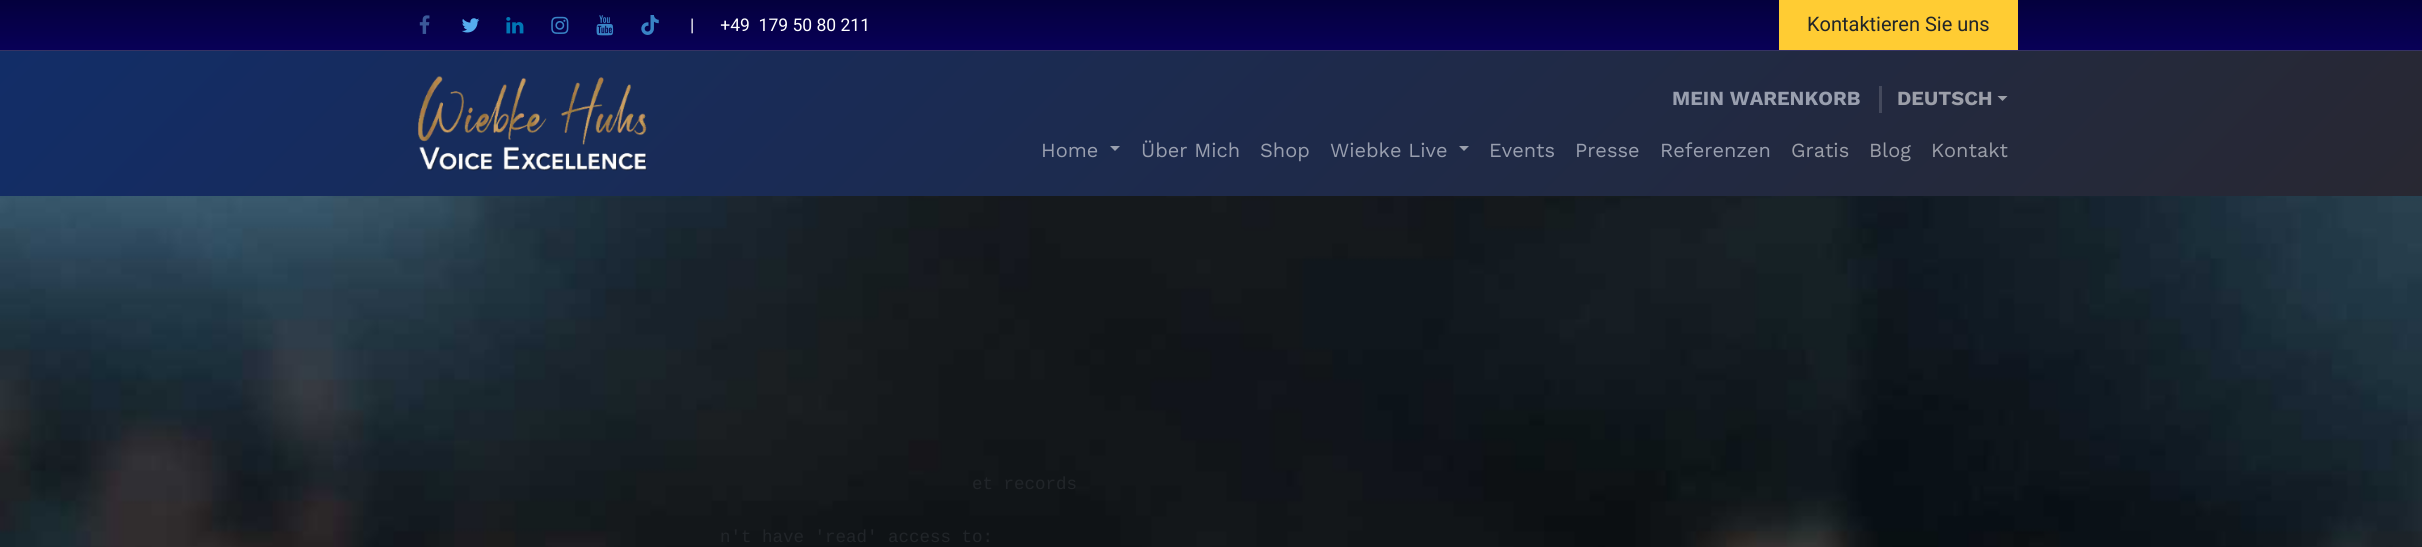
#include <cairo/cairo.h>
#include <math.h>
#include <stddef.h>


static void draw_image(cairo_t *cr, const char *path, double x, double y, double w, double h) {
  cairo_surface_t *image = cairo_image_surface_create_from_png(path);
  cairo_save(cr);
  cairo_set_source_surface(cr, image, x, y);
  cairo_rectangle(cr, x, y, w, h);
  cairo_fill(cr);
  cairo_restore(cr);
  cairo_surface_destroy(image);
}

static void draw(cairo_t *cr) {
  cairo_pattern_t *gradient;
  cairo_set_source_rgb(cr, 1, 1, 1);
  cairo_paint(cr);
  draw_image(cr, "images/1.png", 0, 196, 2422, 351);
  gradient = cairo_pattern_create_linear(557, -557, 1866, 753);
  cairo_pattern_add_color_stop_rgba(gradient, 0.01, 18 / 255.0, 45 / 255.0, 104 / 255.0, 1);
  cairo_pattern_add_color_stop_rgba(gradient, 1, 40 / 255.0, 40 / 255.0, 50 / 255.0, 1);
  cairo_set_source(cr, gradient);
  cairo_pattern_destroy(gradient);
  cairo_rectangle(cr, 0, 51, 2422, 145);
  cairo_fill(cr);
  gradient = cairo_pattern_create_linear(1211, 0, 1211, 50);
  cairo_pattern_add_color_stop_rgba(gradient, 0, 4 / 255.0, 0, 61 / 255.0, 1);
  cairo_pattern_add_color_stop_rgba(gradient, 1, 8 / 255.0, 0, 87 / 255.0, 1);
  cairo_set_source(cr, gradient);
  cairo_pattern_destroy(gradient);
  cairo_rectangle(cr, 0, 0, 2422, 50);
  cairo_fill(cr);
  cairo_set_source_rgb(cr, 54 / 255.0, 51 / 255.0, 100 / 255.0);
  cairo_rectangle(cr, 0, 50, 2422, 1);
  cairo_fill(cr);
  draw_image(cr, "images/2.png", 419, 15, 11, 19);
  draw_image(cr, "images/3.png", 461, 18, 19, 15);
  draw_image(cr, "images/4.png", 506, 17, 18, 17);
  draw_image(cr, "images/5.png", 551, 16, 18, 18);
  draw_image(cr, "images/6.png", 596, 15, 18, 21);
  draw_image(cr, "images/7.png", 641, 15, 18, 20);
  cairo_set_source_rgb(cr, 1, 204 / 255.0, 51 / 255.0);
  cairo_rectangle(cr, 1779, 0, 239, 50);
  cairo_fill(cr);
  draw_image(cr, "images/8.png", 417, 76, 230, 95);
  cairo_set_source_rgb(cr, 68 / 255.0, 73 / 255.0, 92 / 255.0);
  cairo_rectangle(cr, 1879, 86, 3, 27);
  cairo_fill(cr);
  cairo_set_source_rgb(cr, 156 / 255.0, 159 / 255.0, 168 / 255.0);
  cairo_new_path(cr);
  cairo_move_to(cr, 1997.5, 96);
  cairo_line_to(cr, 2007.5, 96);
  cairo_line_to(cr, 2002.5, 101);
  cairo_close_path(cr);
  cairo_fill(cr);
  cairo_set_source_rgb(cr, 153 / 255.0, 160 / 255.0, 175 / 255.0);
  cairo_new_path(cr);
  cairo_move_to(cr, 1110, 146);
  cairo_line_to(cr, 1120, 146);
  cairo_line_to(cr, 1115, 151);
  cairo_close_path(cr);
  cairo_fill(cr);
  cairo_set_source_rgb(cr, 154 / 255.0, 159 / 255.0, 172 / 255.0);
  cairo_new_path(cr);
  cairo_move_to(cr, 1459, 146);
  cairo_line_to(cr, 1469, 146);
  cairo_line_to(cr, 1464, 151);
  cairo_close_path(cr);
  cairo_fill(cr);
  cairo_select_font_face(cr, "Roboto", CAIRO_FONT_SLANT_NORMAL, CAIRO_FONT_WEIGHT_NORMAL);
  cairo_set_font_size(cr, 17.5);
  cairo_set_source_rgb(cr, 1, 1, 1);
  cairo_move_to(cr, 690, 31);
  cairo_show_text(cr, "|      +49  179 50 80 211");
  cairo_set_font_size(cr, 20);
  cairo_set_source_rgb(cr, 33 / 255.0, 37 / 255.0, 41 / 255.0);
  cairo_move_to(cr, 1807, 31);
  cairo_show_text(cr, "Kontaktieren Sie uns");
  cairo_select_font_face(cr, "Work Sans", CAIRO_FONT_SLANT_NORMAL, CAIRO_FONT_WEIGHT_BOLD);
  cairo_set_source_rgb(cr, 153 / 255.0, 159 / 255.0, 175 / 255.0);
  cairo_move_to(cr, 1672, 105);
  cairo_show_text(cr, "MEIN WARENKORB");
  cairo_set_source_rgb(cr, 156 / 255.0, 159 / 255.0, 169 / 255.0);
  cairo_move_to(cr, 1897, 105);
  cairo_show_text(cr, "DEUTSCH");
  cairo_select_font_face(cr, "Work Sans", CAIRO_FONT_SLANT_NORMAL, CAIRO_FONT_WEIGHT_NORMAL);
  cairo_set_source_rgb(cr, 153 / 255.0, 159 / 255.0, 175 / 255.0);
  cairo_move_to(cr, 1041, 157);
  cairo_show_text(cr, "Home");
  cairo_move_to(cr, 1141, 157);
  cairo_show_text(cr, "Über Mich");
  cairo_move_to(cr, 1260, 157);
  cairo_show_text(cr, "Shop");
  cairo_move_to(cr, 1330, 157);
  cairo_show_text(cr, "Wiebke Live");
  cairo_move_to(cr, 1489, 157);
  cairo_show_text(cr, "Events");
  cairo_move_to(cr, 1575, 157);
  cairo_show_text(cr, "Presse");
  cairo_move_to(cr, 1660, 157);
  cairo_show_text(cr, "Referenzen");
  cairo_set_source_rgb(cr, 156 / 255.0, 159 / 255.0, 169 / 255.0);
  cairo_move_to(cr, 1791, 157);
  cairo_show_text(cr, "Gratis");
  cairo_move_to(cr, 1869, 157);
  cairo_show_text(cr, "Blog");
  cairo_move_to(cr, 1931, 157);
  cairo_show_text(cr, "Kontakt");
  cairo_select_font_face(cr, "Liberation Mono", CAIRO_FONT_SLANT_NORMAL, CAIRO_FONT_WEIGHT_NORMAL);
  cairo_set_font_size(cr, 17.5);
  cairo_set_source_rgb(cr, 33 / 255.0, 37 / 255.0, 41 / 255.0);
  cairo_move_to(cr, 972, 489);
  cairo_show_text(cr, "et records");
  cairo_move_to(cr, 720, 542);
  cairo_show_text(cr, "n't have 'read' access to:");
}

int main(void) {
  cairo_surface_t *surface = cairo_image_surface_create(CAIRO_FORMAT_RGB24, 2422, 547);
  cairo_t *cr = cairo_create(surface);
  cairo_font_options_t *options = cairo_font_options_create();
  cairo_font_options_set_hint_metrics(options, CAIRO_HINT_METRICS_OFF);
  cairo_font_options_set_hint_style(options, CAIRO_HINT_STYLE_NONE);
  cairo_set_font_options(cr, options);
  cairo_set_miter_limit(cr, 4);
  draw(cr);
  cairo_surface_write_to_png(surface, "out.png");
  cairo_font_options_destroy(options);
  cairo_destroy(cr);
  cairo_surface_destroy(surface);
  return 0;
}
